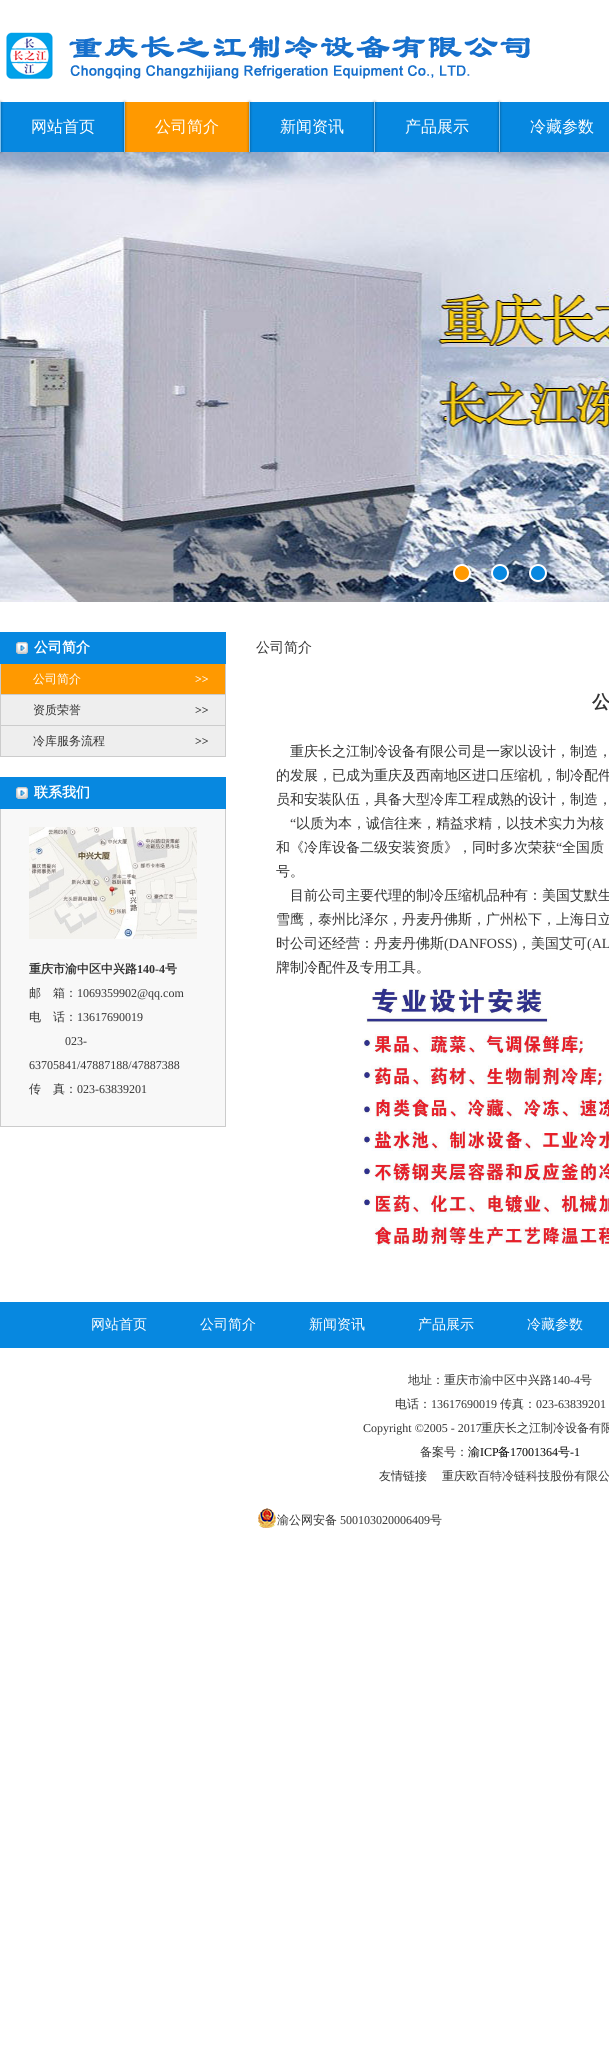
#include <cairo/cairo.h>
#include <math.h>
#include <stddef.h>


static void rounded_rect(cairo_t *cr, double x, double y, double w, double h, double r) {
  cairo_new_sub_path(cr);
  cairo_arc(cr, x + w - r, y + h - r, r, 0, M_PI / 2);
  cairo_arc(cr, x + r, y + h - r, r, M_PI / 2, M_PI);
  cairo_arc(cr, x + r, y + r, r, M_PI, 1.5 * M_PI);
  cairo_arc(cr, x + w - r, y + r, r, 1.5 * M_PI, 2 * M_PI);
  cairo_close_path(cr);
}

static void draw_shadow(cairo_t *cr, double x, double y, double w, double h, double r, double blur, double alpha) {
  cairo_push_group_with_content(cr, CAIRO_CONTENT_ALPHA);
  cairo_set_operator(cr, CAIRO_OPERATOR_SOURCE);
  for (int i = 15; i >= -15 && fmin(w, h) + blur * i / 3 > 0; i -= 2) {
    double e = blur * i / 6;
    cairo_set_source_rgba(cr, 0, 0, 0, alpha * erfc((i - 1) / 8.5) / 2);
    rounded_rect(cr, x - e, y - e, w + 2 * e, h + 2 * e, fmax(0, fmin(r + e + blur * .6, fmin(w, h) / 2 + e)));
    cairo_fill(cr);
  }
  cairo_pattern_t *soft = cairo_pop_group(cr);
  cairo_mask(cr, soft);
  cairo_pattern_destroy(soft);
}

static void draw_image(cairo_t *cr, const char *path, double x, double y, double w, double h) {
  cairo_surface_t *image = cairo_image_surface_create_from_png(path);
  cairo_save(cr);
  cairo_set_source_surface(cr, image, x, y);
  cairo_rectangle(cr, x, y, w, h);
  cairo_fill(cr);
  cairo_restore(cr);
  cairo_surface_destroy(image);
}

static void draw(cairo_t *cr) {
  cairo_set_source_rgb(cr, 1, 1, 1);
  cairo_paint(cr);
  draw_image(cr, "images/1.png", 6, 32, 524, 48);
  cairo_set_source_rgb(cr, 7 / 255.0, 136 / 255.0, 224 / 255.0);
  cairo_rectangle(cr, 1, 102, 608, 50);
  cairo_fill(cr);
  draw_image(cr, "images/2.png", 0, 152, 609, 450);
  cairo_set_source_rgb(cr, 0, 0, 0);
  draw_shadow(cr, 0, 102, 1, 50, 0, 1.5, 0.36);
  cairo_set_source_rgb(cr, 126 / 255.0, 193 / 255.0, 239 / 255.0);
  cairo_rectangle(cr, 0, 102, 1, 50);
  cairo_fill(cr);
  cairo_set_source_rgb(cr, 1, 153 / 255.0, 0);
  cairo_rectangle(cr, 125, 102, 124, 50);
  cairo_fill(cr);
  cairo_set_source_rgb(cr, 0, 0, 0);
  draw_shadow(cr, 124, 102, 1, 50, 0, 1.5, 0.36);
  cairo_set_source_rgb(cr, 126 / 255.0, 193 / 255.0, 239 / 255.0);
  cairo_rectangle(cr, 124, 102, 1, 50);
  cairo_fill(cr);
  cairo_set_source_rgb(cr, 0, 0, 0);
  draw_shadow(cr, 249, 102, 1, 50, 0, 1.5, 0.36);
  cairo_set_source_rgb(cr, 126 / 255.0, 193 / 255.0, 239 / 255.0);
  cairo_rectangle(cr, 249, 102, 1, 50);
  cairo_fill(cr);
  cairo_set_source_rgb(cr, 0, 0, 0);
  draw_shadow(cr, 374, 102, 1, 50, 0, 1.5, 0.36);
  cairo_set_source_rgb(cr, 126 / 255.0, 193 / 255.0, 239 / 255.0);
  cairo_rectangle(cr, 374, 102, 1, 50);
  cairo_fill(cr);
  cairo_set_source_rgb(cr, 0, 0, 0);
  draw_shadow(cr, 499, 102, 1, 50, 0, 1.5, 0.36);
  cairo_set_source_rgb(cr, 126 / 255.0, 193 / 255.0, 239 / 255.0);
  cairo_rectangle(cr, 499, 102, 1, 50);
  cairo_fill(cr);
  cairo_set_source_rgb(cr, 1, 153 / 255.0, 0);
  cairo_arc(cr, 462, 573, 8, 0, 2 * M_PI);
  cairo_fill_preserve(cr);
  cairo_set_source_rgb(cr, 1, 1, 1);
  cairo_stroke(cr);
  cairo_set_source_rgb(cr, 7 / 255.0, 136 / 255.0, 224 / 255.0);
  cairo_arc(cr, 500, 573, 8, 0, 2 * M_PI);
  cairo_fill_preserve(cr);
  cairo_set_source_rgb(cr, 1, 1, 1);
  cairo_stroke(cr);
  cairo_set_source_rgb(cr, 7 / 255.0, 136 / 255.0, 224 / 255.0);
  cairo_arc(cr, 538, 573, 8, 0, 2 * M_PI);
  cairo_fill_preserve(cr);
  cairo_set_source_rgb(cr, 1, 1, 1);
  cairo_stroke(cr);
  cairo_set_source_rgb(cr, 7 / 255.0, 136 / 255.0, 224 / 255.0);
  cairo_rectangle(cr, 0, 632, 226, 32);
  cairo_fill(cr);
  draw_image(cr, "images/3.png", 16, 642, 12, 12);
  cairo_set_source_rgb(cr, 204 / 255.0, 204 / 255.0, 204 / 255.0);
  cairo_rectangle(cr, 225, 664, 1, 93);
  cairo_fill(cr);
  cairo_rectangle(cr, 0, 756, 226, 1);
  cairo_fill(cr);
  cairo_rectangle(cr, 0, 664, 1, 93);
  cairo_fill(cr);
  cairo_set_source_rgb(cr, 1, 153 / 255.0, 0);
  cairo_rectangle(cr, 1, 664, 224, 30);
  cairo_fill(cr);
  cairo_set_source_rgb(cr, 204 / 255.0, 204 / 255.0, 204 / 255.0);
  cairo_rectangle(cr, 1, 694, 224, 1);
  cairo_fill(cr);
  cairo_set_source_rgb(cr, 238 / 255.0, 238 / 255.0, 238 / 255.0);
  cairo_rectangle(cr, 1, 695, 224, 30);
  cairo_fill(cr);
  cairo_set_source_rgb(cr, 204 / 255.0, 204 / 255.0, 204 / 255.0);
  cairo_rectangle(cr, 1, 725, 224, 1);
  cairo_fill(cr);
  cairo_set_source_rgb(cr, 238 / 255.0, 238 / 255.0, 238 / 255.0);
  cairo_rectangle(cr, 1, 726, 224, 30);
  cairo_fill(cr);
  cairo_set_source_rgb(cr, 7 / 255.0, 136 / 255.0, 224 / 255.0);
  cairo_rectangle(cr, 0, 777, 226, 32);
  cairo_fill(cr);
  draw_image(cr, "images/3.png", 16, 787, 12, 12);
  cairo_set_source_rgb(cr, 248 / 255.0, 248 / 255.0, 248 / 255.0);
  cairo_rectangle(cr, 1, 809, 224, 317);
  cairo_fill(cr);
  cairo_set_source_rgb(cr, 204 / 255.0, 204 / 255.0, 204 / 255.0);
  cairo_rectangle(cr, 225, 809, 1, 318);
  cairo_fill(cr);
  cairo_rectangle(cr, 0, 1126, 226, 1);
  cairo_fill(cr);
  cairo_rectangle(cr, 0, 809, 1, 318);
  cairo_fill(cr);
  draw_image(cr, "images/4.png", 29, 827, 168, 112);
  draw_image(cr, "images/5.png", 362, 987, 247, 259);
  cairo_set_source_rgb(cr, 7 / 255.0, 136 / 255.0, 224 / 255.0);
  cairo_rectangle(cr, 0, 1302, 609, 46);
  cairo_fill(cr);
  draw_image(cr, "images/6.png", 258, 1508, 18, 20);
  cairo_select_font_face(cr, "WenQuanYi Zen Hei Medium", CAIRO_FONT_SLANT_NORMAL, CAIRO_FONT_WEIGHT_NORMAL);
  cairo_set_font_size(cr, 16);
  cairo_set_source_rgb(cr, 1, 1, 1);
  cairo_move_to(cr, 31, 132);
  cairo_show_text(cr, "网站首页");
  cairo_move_to(cr, 155, 132);
  cairo_show_text(cr, "公司简介");
  cairo_move_to(cr, 280, 132);
  cairo_show_text(cr, "新闻资讯");
  cairo_move_to(cr, 405, 132);
  cairo_show_text(cr, "产品展示");
  cairo_move_to(cr, 530, 132);
  cairo_show_text(cr, "冷藏参数");
  cairo_select_font_face(cr, "WenQuanYi Zen Hei", CAIRO_FONT_SLANT_NORMAL, CAIRO_FONT_WEIGHT_BOLD);
  cairo_set_font_size(cr, 14);
  cairo_move_to(cr, 34, 652);
  cairo_show_text(cr, "公司简介");
  cairo_select_font_face(cr, "WenQuanYi Zen Hei Medium", CAIRO_FONT_SLANT_NORMAL, CAIRO_FONT_WEIGHT_NORMAL);
  cairo_set_font_size(cr, 12);
  cairo_move_to(cr, 33, 683);
  cairo_show_text(cr, "公司简介");
  cairo_select_font_face(cr, "Liberation Serif", CAIRO_FONT_SLANT_NORMAL, CAIRO_FONT_WEIGHT_BOLD);
  cairo_move_to(cr, 195, 683);
  cairo_show_text(cr, ">>");
  cairo_select_font_face(cr, "WenQuanYi Zen Hei Medium", CAIRO_FONT_SLANT_NORMAL, CAIRO_FONT_WEIGHT_NORMAL);
  cairo_set_source_rgb(cr, 51 / 255.0, 51 / 255.0, 51 / 255.0);
  cairo_move_to(cr, 33, 714);
  cairo_show_text(cr, "资质荣誉");
  cairo_select_font_face(cr, "Liberation Serif", CAIRO_FONT_SLANT_NORMAL, CAIRO_FONT_WEIGHT_BOLD);
  cairo_move_to(cr, 195, 714);
  cairo_show_text(cr, ">>");
  cairo_select_font_face(cr, "WenQuanYi Zen Hei Medium", CAIRO_FONT_SLANT_NORMAL, CAIRO_FONT_WEIGHT_NORMAL);
  cairo_move_to(cr, 33, 745);
  cairo_show_text(cr, "冷库服务流程");
  cairo_select_font_face(cr, "Liberation Serif", CAIRO_FONT_SLANT_NORMAL, CAIRO_FONT_WEIGHT_BOLD);
  cairo_move_to(cr, 195, 745);
  cairo_show_text(cr, ">>");
  cairo_select_font_face(cr, "WenQuanYi Zen Hei", CAIRO_FONT_SLANT_NORMAL, CAIRO_FONT_WEIGHT_BOLD);
  cairo_set_font_size(cr, 14);
  cairo_set_source_rgb(cr, 1, 1, 1);
  cairo_move_to(cr, 34, 797);
  cairo_show_text(cr, "联系我们");
  cairo_set_font_size(cr, 12);
  cairo_set_source_rgb(cr, 51 / 255.0, 51 / 255.0, 51 / 255.0);
  cairo_move_to(cr, 29, 973);
  cairo_show_text(cr, "重庆市渝中区中兴路");
  cairo_select_font_face(cr, "Liberation Serif", CAIRO_FONT_SLANT_NORMAL, CAIRO_FONT_WEIGHT_BOLD);
  cairo_move_to(cr, 137, 973);
  cairo_show_text(cr, "140-4");
  cairo_select_font_face(cr, "WenQuanYi Zen Hei", CAIRO_FONT_SLANT_NORMAL, CAIRO_FONT_WEIGHT_BOLD);
  cairo_move_to(cr, 165, 973);
  cairo_show_text(cr, "号");
  cairo_select_font_face(cr, "WenQuanYi Zen Hei Medium", CAIRO_FONT_SLANT_NORMAL, CAIRO_FONT_WEIGHT_NORMAL);
  cairo_move_to(cr, 29, 997);
  cairo_show_text(cr, "邮　箱：");
  cairo_select_font_face(cr, "Liberation Serif", CAIRO_FONT_SLANT_NORMAL, CAIRO_FONT_WEIGHT_NORMAL);
  cairo_move_to(cr, 77, 997);
  cairo_show_text(cr, "1069359902@qq.com");
  cairo_select_font_face(cr, "WenQuanYi Zen Hei Medium", CAIRO_FONT_SLANT_NORMAL, CAIRO_FONT_WEIGHT_NORMAL);
  cairo_move_to(cr, 29, 1021);
  cairo_show_text(cr, "电　话：");
  cairo_select_font_face(cr, "Liberation Serif", CAIRO_FONT_SLANT_NORMAL, CAIRO_FONT_WEIGHT_NORMAL);
  cairo_move_to(cr, 77, 1021);
  cairo_show_text(cr, "13617690019");
  cairo_move_to(cr, 65, 1045);
  cairo_show_text(cr, "023-");
  cairo_move_to(cr, 29, 1069);
  cairo_show_text(cr, "63705841/47887188/47887388");
  cairo_select_font_face(cr, "WenQuanYi Zen Hei Medium", CAIRO_FONT_SLANT_NORMAL, CAIRO_FONT_WEIGHT_NORMAL);
  cairo_move_to(cr, 29, 1093);
  cairo_show_text(cr, "传　真：");
  cairo_select_font_face(cr, "Liberation Serif", CAIRO_FONT_SLANT_NORMAL, CAIRO_FONT_WEIGHT_NORMAL);
  cairo_move_to(cr, 77, 1093);
  cairo_show_text(cr, "023-63839201");
  cairo_select_font_face(cr, "WenQuanYi Zen Hei Medium", CAIRO_FONT_SLANT_NORMAL, CAIRO_FONT_WEIGHT_NORMAL);
  cairo_set_font_size(cr, 14);
  cairo_move_to(cr, 256, 652);
  cairo_show_text(cr, "公司简介");
  cairo_select_font_face(cr, "WenQuanYi Zen Hei", CAIRO_FONT_SLANT_NORMAL, CAIRO_FONT_WEIGHT_BOLD);
  cairo_set_font_size(cr, 18);
  cairo_move_to(cr, 592, 708);
  cairo_show_text(cr, "公");
  cairo_select_font_face(cr, "WenQuanYi Zen Hei Medium", CAIRO_FONT_SLANT_NORMAL, CAIRO_FONT_WEIGHT_NORMAL);
  cairo_set_font_size(cr, 14);
  cairo_move_to(cr, 290, 756);
  cairo_show_text(cr, "重庆长之江制冷设备有限公司是一家以设计，制造，");
  cairo_move_to(cr, 276, 780);
  cairo_show_text(cr, "的发展，已成为重庆及西南地区进口压缩机，制冷配件");
  cairo_move_to(cr, 276, 804);
  cairo_show_text(cr, "员和安装队伍，具备大型冷库工程成熟的设计，制造，");
  cairo_select_font_face(cr, "Liberation Serif", CAIRO_FONT_SLANT_NORMAL, CAIRO_FONT_WEIGHT_NORMAL);
  cairo_move_to(cr, 290, 828);
  cairo_show_text(cr, "“");
  cairo_select_font_face(cr, "WenQuanYi Zen Hei Medium", CAIRO_FONT_SLANT_NORMAL, CAIRO_FONT_WEIGHT_NORMAL);
  cairo_move_to(cr, 296, 828);
  cairo_show_text(cr, "以质为本，诚信往来，精益求精，以技术实力为核");
  cairo_move_to(cr, 276, 852);
  cairo_show_text(cr, "和《冷库设备二级安装资质》，同时多次荣获");
  cairo_select_font_face(cr, "Liberation Serif", CAIRO_FONT_SLANT_NORMAL, CAIRO_FONT_WEIGHT_NORMAL);
  cairo_move_to(cr, 556, 852);
  cairo_show_text(cr, "“");
  cairo_select_font_face(cr, "WenQuanYi Zen Hei Medium", CAIRO_FONT_SLANT_NORMAL, CAIRO_FONT_WEIGHT_NORMAL);
  cairo_move_to(cr, 562, 852);
  cairo_show_text(cr, "全国质");
  cairo_move_to(cr, 276, 876);
  cairo_show_text(cr, "号。");
  cairo_move_to(cr, 290, 900);
  cairo_show_text(cr, "目前公司主要代理的制冷压缩机品种有：美国艾默生");
  cairo_move_to(cr, 276, 924);
  cairo_show_text(cr, "雪鹰，泰州比泽尔，丹麦丹佛斯，广州松下，上海日立");
  cairo_move_to(cr, 276, 948);
  cairo_show_text(cr, "时公司还经营：丹麦丹佛斯");
  cairo_select_font_face(cr, "Liberation Serif", CAIRO_FONT_SLANT_NORMAL, CAIRO_FONT_WEIGHT_NORMAL);
  cairo_move_to(cr, 444, 948);
  cairo_show_text(cr, "(DANFOSS)");
  cairo_select_font_face(cr, "WenQuanYi Zen Hei Medium", CAIRO_FONT_SLANT_NORMAL, CAIRO_FONT_WEIGHT_NORMAL);
  cairo_move_to(cr, 517, 948);
  cairo_show_text(cr, "，美国艾可");
  cairo_select_font_face(cr, "Liberation Serif", CAIRO_FONT_SLANT_NORMAL, CAIRO_FONT_WEIGHT_NORMAL);
  cairo_move_to(cr, 587, 948);
  cairo_show_text(cr, "(AL");
  cairo_select_font_face(cr, "WenQuanYi Zen Hei Medium", CAIRO_FONT_SLANT_NORMAL, CAIRO_FONT_WEIGHT_NORMAL);
  cairo_move_to(cr, 276, 972);
  cairo_show_text(cr, "牌制冷配件及专用工具。");
  cairo_set_source_rgb(cr, 1, 1, 1);
  cairo_move_to(cr, 91, 1329);
  cairo_show_text(cr, "网站首页");
  cairo_move_to(cr, 200, 1329);
  cairo_show_text(cr, "公司简介");
  cairo_move_to(cr, 309, 1329);
  cairo_show_text(cr, "新闻资讯");
  cairo_move_to(cr, 418, 1329);
  cairo_show_text(cr, "产品展示");
  cairo_move_to(cr, 527, 1329);
  cairo_show_text(cr, "冷藏参数");
  cairo_set_font_size(cr, 12);
  cairo_set_source_rgb(cr, 51 / 255.0, 51 / 255.0, 51 / 255.0);
  cairo_move_to(cr, 408, 1384);
  cairo_show_text(cr, "地址：重庆市渝中区中兴路");
  cairo_select_font_face(cr, "Liberation Serif", CAIRO_FONT_SLANT_NORMAL, CAIRO_FONT_WEIGHT_NORMAL);
  cairo_move_to(cr, 552, 1384);
  cairo_show_text(cr, "140-4");
  cairo_select_font_face(cr, "WenQuanYi Zen Hei Medium", CAIRO_FONT_SLANT_NORMAL, CAIRO_FONT_WEIGHT_NORMAL);
  cairo_move_to(cr, 580, 1384);
  cairo_show_text(cr, "号");
  cairo_move_to(cr, 395, 1408);
  cairo_show_text(cr, "电话：");
  cairo_select_font_face(cr, "Liberation Serif", CAIRO_FONT_SLANT_NORMAL, CAIRO_FONT_WEIGHT_NORMAL);
  cairo_move_to(cr, 431, 1408);
  cairo_show_text(cr, "13617690019");
  cairo_select_font_face(cr, "WenQuanYi Zen Hei Medium", CAIRO_FONT_SLANT_NORMAL, CAIRO_FONT_WEIGHT_NORMAL);
  cairo_move_to(cr, 500, 1408);
  cairo_show_text(cr, "传真：");
  cairo_select_font_face(cr, "Liberation Serif", CAIRO_FONT_SLANT_NORMAL, CAIRO_FONT_WEIGHT_NORMAL);
  cairo_move_to(cr, 536, 1408);
  cairo_show_text(cr, "023-63839201");
  cairo_move_to(cr, 363, 1432);
  cairo_show_text(cr, "Copyright ©2005 - 2017");
  cairo_select_font_face(cr, "WenQuanYi Zen Hei Medium", CAIRO_FONT_SLANT_NORMAL, CAIRO_FONT_WEIGHT_NORMAL);
  cairo_move_to(cr, 481, 1432);
  cairo_show_text(cr, "重庆长之江制冷设备有限");
  cairo_move_to(cr, 420, 1456);
  cairo_show_text(cr, "备案号：");
  cairo_set_source_rgb(cr, 0, 0, 0);
  cairo_move_to(cr, 468, 1456);
  cairo_show_text(cr, "渝");
  cairo_select_font_face(cr, "Liberation Serif", CAIRO_FONT_SLANT_NORMAL, CAIRO_FONT_WEIGHT_NORMAL);
  cairo_move_to(cr, 480, 1456);
  cairo_show_text(cr, "ICP");
  cairo_select_font_face(cr, "WenQuanYi Zen Hei Medium", CAIRO_FONT_SLANT_NORMAL, CAIRO_FONT_WEIGHT_NORMAL);
  cairo_move_to(cr, 498, 1456);
  cairo_show_text(cr, "备");
  cairo_select_font_face(cr, "Liberation Serif", CAIRO_FONT_SLANT_NORMAL, CAIRO_FONT_WEIGHT_NORMAL);
  cairo_move_to(cr, 510, 1456);
  cairo_show_text(cr, "17001364");
  cairo_select_font_face(cr, "WenQuanYi Zen Hei Medium", CAIRO_FONT_SLANT_NORMAL, CAIRO_FONT_WEIGHT_NORMAL);
  cairo_move_to(cr, 558, 1456);
  cairo_show_text(cr, "号");
  cairo_select_font_face(cr, "Liberation Serif", CAIRO_FONT_SLANT_NORMAL, CAIRO_FONT_WEIGHT_NORMAL);
  cairo_move_to(cr, 570, 1456);
  cairo_show_text(cr, "-1");
  cairo_select_font_face(cr, "WenQuanYi Zen Hei Medium", CAIRO_FONT_SLANT_NORMAL, CAIRO_FONT_WEIGHT_NORMAL);
  cairo_set_source_rgb(cr, 51 / 255.0, 51 / 255.0, 51 / 255.0);
  cairo_move_to(cr, 379, 1480);
  cairo_show_text(cr, "友情链接");
  cairo_move_to(cr, 442, 1480);
  cairo_show_text(cr, "重庆欧百特冷链科技股份有限公");
  cairo_move_to(cr, 277, 1524);
  cairo_show_text(cr, "渝公网安备");
  cairo_select_font_face(cr, "Liberation Serif", CAIRO_FONT_SLANT_NORMAL, CAIRO_FONT_WEIGHT_NORMAL);
  cairo_move_to(cr, 340, 1524);
  cairo_show_text(cr, "500103020006409");
  cairo_select_font_face(cr, "WenQuanYi Zen Hei Medium", CAIRO_FONT_SLANT_NORMAL, CAIRO_FONT_WEIGHT_NORMAL);
  cairo_move_to(cr, 430, 1524);
  cairo_show_text(cr, "号");
}

int main(void) {
  cairo_surface_t *surface = cairo_image_surface_create(CAIRO_FORMAT_RGB24, 609, 2046);
  cairo_t *cr = cairo_create(surface);
  cairo_font_options_t *options = cairo_font_options_create();
  cairo_font_options_set_hint_metrics(options, CAIRO_HINT_METRICS_OFF);
  cairo_font_options_set_hint_style(options, CAIRO_HINT_STYLE_NONE);
  cairo_set_font_options(cr, options);
  cairo_set_miter_limit(cr, 4);
  draw(cr);
  cairo_surface_write_to_png(surface, "out.png");
  cairo_font_options_destroy(options);
  cairo_destroy(cr);
  cairo_surface_destroy(surface);
  return 0;
}
